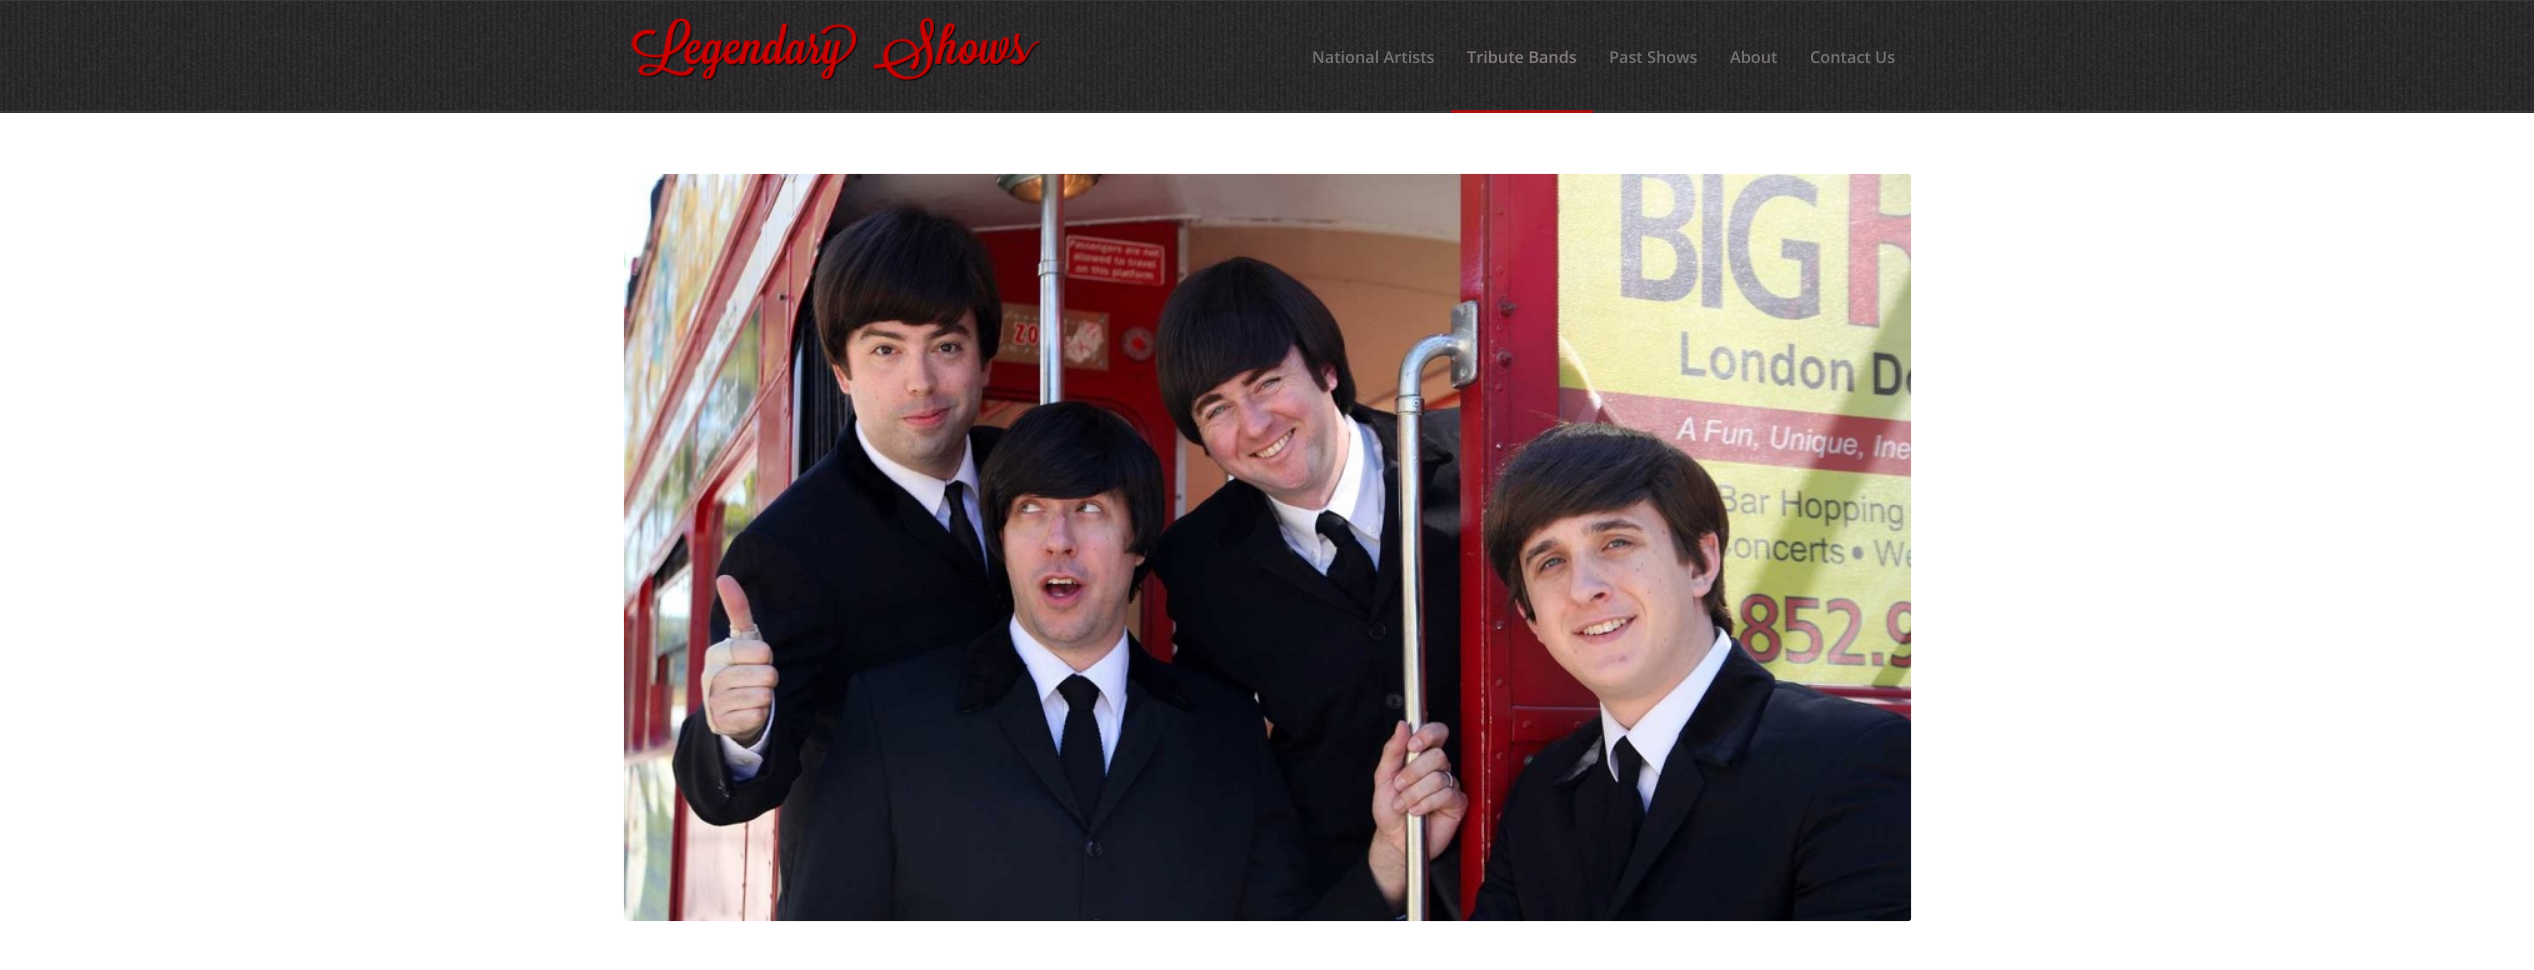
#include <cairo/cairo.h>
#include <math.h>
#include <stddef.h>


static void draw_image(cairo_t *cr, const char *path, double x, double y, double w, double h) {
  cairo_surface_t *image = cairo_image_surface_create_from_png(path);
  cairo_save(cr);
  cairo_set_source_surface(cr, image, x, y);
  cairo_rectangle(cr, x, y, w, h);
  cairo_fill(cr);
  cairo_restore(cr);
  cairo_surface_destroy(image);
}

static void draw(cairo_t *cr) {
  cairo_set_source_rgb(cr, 38 / 255.0, 36 / 255.0, 38 / 255.0);
  cairo_paint(cr);
  cairo_set_source_rgb(cr, 49 / 255.0, 47 / 255.0, 49 / 255.0);
  cairo_rectangle(cr, 0, 112, 2534, 1);
  cairo_fill(cr);
  cairo_set_source_rgb(cr, 43 / 255.0, 41 / 255.0, 43 / 255.0);
  cairo_rectangle(cr, 0, 110, 2534, 1);
  cairo_fill(cr);
  draw_image(cr, "images/1.png", 0, 1, 2534, 112);
  cairo_set_source_rgb(cr, 56 / 255.0, 56 / 255.0, 56 / 255.0);
  cairo_rectangle(cr, 0, 0, 2534, 1);
  cairo_fill(cr);
  cairo_rectangle(cr, 0, 111, 2534, 1);
  cairo_fill(cr);
  draw_image(cr, "images/2.png", 631, 17, 410, 65);
  cairo_set_source_rgb(cr, 168 / 255.0, 16 / 255.0, 16 / 255.0);
  cairo_rectangle(cr, 1451, 110, 142, 3);
  cairo_fill(cr);
  cairo_set_source_rgb(cr, 1, 1, 1);
  cairo_rectangle(cr, 0, 113, 2534, 857);
  cairo_fill(cr);
  draw_image(cr, "images/3.png", 623, 173, 1289, 749);
  cairo_select_font_face(cr, "Open Sans SemiBold", CAIRO_FONT_SLANT_NORMAL, CAIRO_FONT_WEIGHT_NORMAL);
  cairo_set_font_size(cr, 16.25);
  cairo_set_source_rgb(cr, 117 / 255.0, 114 / 255.0, 117 / 255.0);
  cairo_move_to(cr, 1312, 63);
  cairo_show_text(cr, "National Artists");
  cairo_set_source_rgb(cr, 128 / 255.0, 124 / 255.0, 128 / 255.0);
  cairo_move_to(cr, 1467, 63);
  cairo_show_text(cr, "Tribute Bands");
  cairo_set_source_rgb(cr, 117 / 255.0, 114 / 255.0, 117 / 255.0);
  cairo_move_to(cr, 1609, 63);
  cairo_show_text(cr, "Past Shows");
  cairo_move_to(cr, 1730, 63);
  cairo_show_text(cr, "About");
  cairo_move_to(cr, 1810, 63);
  cairo_show_text(cr, "Contact Us");
}

int main(void) {
  cairo_surface_t *surface = cairo_image_surface_create(CAIRO_FORMAT_RGB24, 2534, 970);
  cairo_t *cr = cairo_create(surface);
  cairo_font_options_t *options = cairo_font_options_create();
  cairo_font_options_set_hint_metrics(options, CAIRO_HINT_METRICS_OFF);
  cairo_font_options_set_hint_style(options, CAIRO_HINT_STYLE_NONE);
  cairo_set_font_options(cr, options);
  cairo_set_miter_limit(cr, 4);
  draw(cr);
  cairo_surface_write_to_png(surface, "out.png");
  cairo_font_options_destroy(options);
  cairo_destroy(cr);
  cairo_surface_destroy(surface);
  return 0;
}
